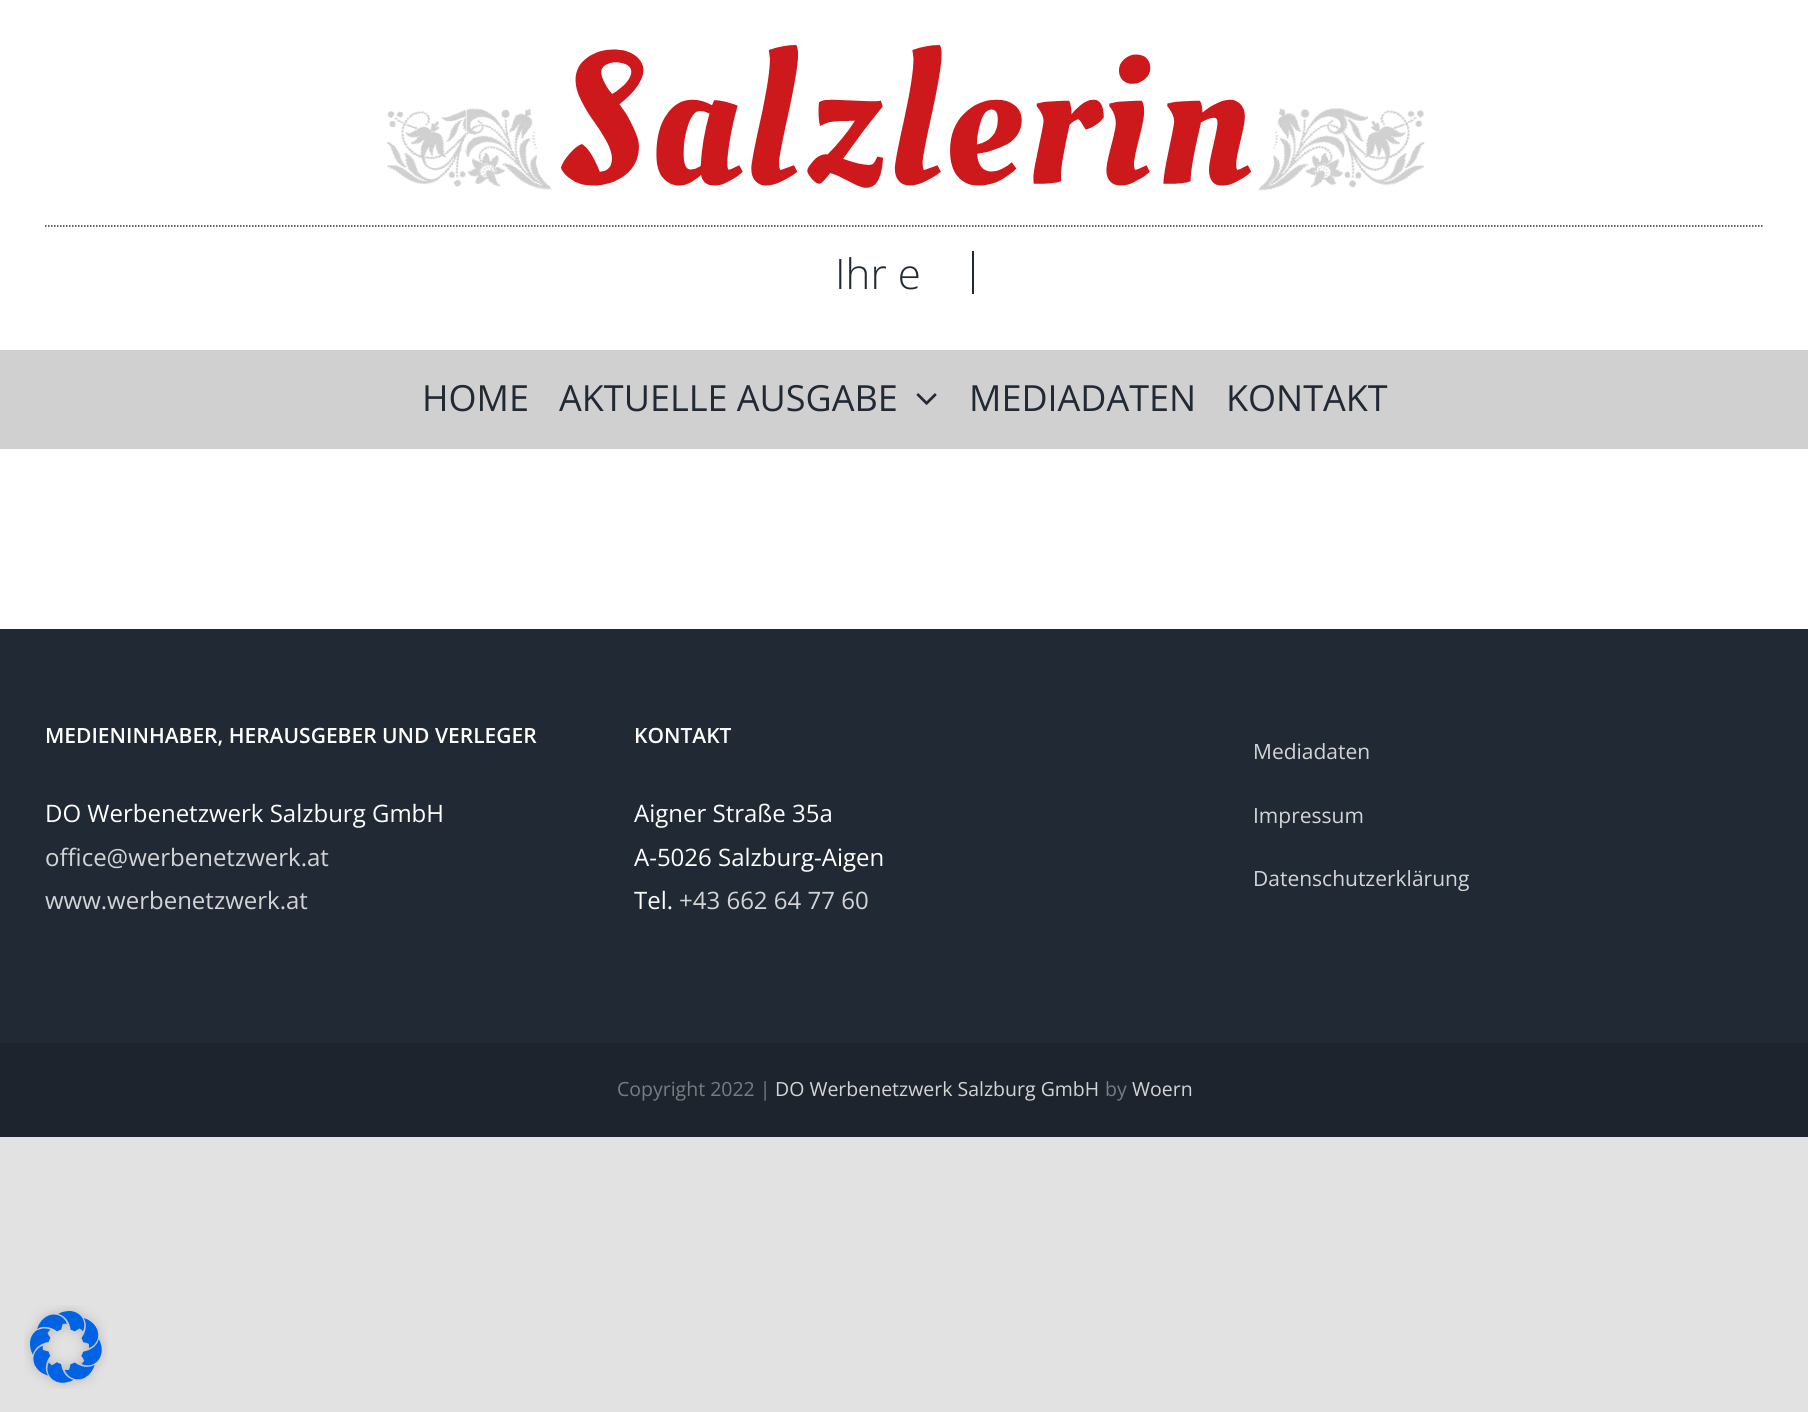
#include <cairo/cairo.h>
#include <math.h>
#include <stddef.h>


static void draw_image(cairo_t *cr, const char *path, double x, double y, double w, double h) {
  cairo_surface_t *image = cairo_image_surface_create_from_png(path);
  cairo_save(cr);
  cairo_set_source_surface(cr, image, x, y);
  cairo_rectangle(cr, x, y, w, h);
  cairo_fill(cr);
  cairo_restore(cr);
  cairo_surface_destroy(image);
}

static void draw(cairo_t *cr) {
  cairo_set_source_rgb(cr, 226 / 255.0, 226 / 255.0, 226 / 255.0);
  cairo_paint(cr);
  cairo_set_source_rgb(cr, 1, 1, 1);
  cairo_rectangle(cr, 0, 0, 1808, 629);
  cairo_fill(cr);
  draw_image(cr, "images/1.png", 387, 45, 1038, 146);
  cairo_new_path(cr);
  cairo_move_to(cr, 45, 226);
  cairo_line_to(cr, 1764, 226);
  cairo_set_source_rgb(cr, 51 / 255.0, 51 / 255.0, 51 / 255.0);
  cairo_set_line_width(cr, 1.5);
  cairo_set_dash(cr, (double[]){1.5, 1.5}, 2, 0);
  cairo_stroke(cr);
  cairo_set_source_rgb(cr, 33 / 255.0, 41 / 255.0, 52 / 255.0);
  cairo_rectangle(cr, 972, 251, 2, 43);
  cairo_fill(cr);
  cairo_set_source_rgb(cr, 208 / 255.0, 208 / 255.0, 208 / 255.0);
  cairo_rectangle(cr, 0, 350, 1808, 99);
  cairo_fill(cr);
  draw_image(cr, "images/2.png", 916, 393, 21, 12);
  cairo_set_source_rgb(cr, 33 / 255.0, 41 / 255.0, 52 / 255.0);
  cairo_rectangle(cr, 0, 629, 1808, 414);
  cairo_fill(cr);
  cairo_set_source_rgb(cr, 29 / 255.0, 36 / 255.0, 45 / 255.0);
  cairo_rectangle(cr, 0, 1043, 1808, 94);
  cairo_fill(cr);
  draw_image(cr, "images/3.png", 24, 1305, 84, 84);
  cairo_select_font_face(cr, "Open Sans Light", CAIRO_FONT_SLANT_NORMAL, CAIRO_FONT_WEIGHT_NORMAL);
  cairo_set_font_size(cr, 42);
  cairo_set_source_rgb(cr, 33 / 255.0, 41 / 255.0, 52 / 255.0);
  cairo_move_to(cr, 835, 289);
  cairo_show_text(cr, "Ihr e");
  cairo_select_font_face(cr, "Open Sans", CAIRO_FONT_SLANT_NORMAL, CAIRO_FONT_WEIGHT_NORMAL);
  cairo_set_font_size(cr, 36);
  cairo_move_to(cr, 422, 411);
  cairo_show_text(cr, "HOME");
  cairo_move_to(cr, 559, 411);
  cairo_show_text(cr, "AKTUELLE AUSGABE");
  cairo_move_to(cr, 969, 411);
  cairo_show_text(cr, "MEDIADATEN");
  cairo_move_to(cr, 1226, 411);
  cairo_show_text(cr, "KONTAKT");
  cairo_select_font_face(cr, "Open Sans SemiBold", CAIRO_FONT_SLANT_NORMAL, CAIRO_FONT_WEIGHT_NORMAL);
  cairo_set_font_size(cr, 21);
  cairo_set_source_rgb(cr, 1, 1, 1);
  cairo_move_to(cr, 45, 743);
  cairo_show_text(cr, "MEDIENINHABER, HERAUSGEBER UND VERLEGER");
  cairo_select_font_face(cr, "Open Sans", CAIRO_FONT_SLANT_NORMAL, CAIRO_FONT_WEIGHT_NORMAL);
  cairo_set_font_size(cr, 24);
  cairo_move_to(cr, 45, 822);
  cairo_show_text(cr, "DO Werbenetzwerk Salzburg GmbH");
  cairo_set_source_rgb(cr, 211 / 255.0, 212 / 255.0, 214 / 255.0);
  cairo_move_to(cr, 45, 866);
  cairo_show_text(cr, "office@werbenetzwerk.at");
  cairo_move_to(cr, 45, 909);
  cairo_show_text(cr, "www.werbenetzwerk.at");
  cairo_select_font_face(cr, "Open Sans SemiBold", CAIRO_FONT_SLANT_NORMAL, CAIRO_FONT_WEIGHT_NORMAL);
  cairo_set_font_size(cr, 21);
  cairo_set_source_rgb(cr, 1, 1, 1);
  cairo_move_to(cr, 634, 743);
  cairo_show_text(cr, "KONTAKT");
  cairo_select_font_face(cr, "Open Sans", CAIRO_FONT_SLANT_NORMAL, CAIRO_FONT_WEIGHT_NORMAL);
  cairo_set_font_size(cr, 24);
  cairo_move_to(cr, 634, 822);
  cairo_show_text(cr, "Aigner Straße 35a");
  cairo_move_to(cr, 634, 866);
  cairo_show_text(cr, "A-5026 Salzburg-Aigen");
  cairo_move_to(cr, 634, 909);
  cairo_show_text(cr, "Tel.");
  cairo_set_source_rgb(cr, 211 / 255.0, 212 / 255.0, 214 / 255.0);
  cairo_move_to(cr, 679, 909);
  cairo_show_text(cr, "+43 662 64 77 60");
  cairo_set_font_size(cr, 21);
  cairo_move_to(cr, 1253, 759);
  cairo_show_text(cr, "Mediadaten");
  cairo_move_to(cr, 1253, 823);
  cairo_show_text(cr, "Impressum");
  cairo_move_to(cr, 1253, 886);
  cairo_show_text(cr, "Datenschutzerklärung");
  cairo_set_font_size(cr, 19.5);
  cairo_set_source_rgb(cr, 119 / 255.0, 124 / 255.0, 129 / 255.0);
  cairo_move_to(cr, 617, 1096);
  cairo_show_text(cr, "Copyright 2022 |");
  cairo_set_source_rgb(cr, 211 / 255.0, 212 / 255.0, 214 / 255.0);
  cairo_move_to(cr, 775, 1096);
  cairo_show_text(cr, "DO Werbenetzwerk Salzburg GmbH");
  cairo_set_source_rgb(cr, 119 / 255.0, 124 / 255.0, 129 / 255.0);
  cairo_move_to(cr, 1105, 1096);
  cairo_show_text(cr, "by");
  cairo_set_source_rgb(cr, 211 / 255.0, 212 / 255.0, 214 / 255.0);
  cairo_move_to(cr, 1132, 1096);
  cairo_show_text(cr, "Woern");
}

int main(void) {
  cairo_surface_t *surface = cairo_image_surface_create(CAIRO_FORMAT_RGB24, 1808, 1412);
  cairo_t *cr = cairo_create(surface);
  cairo_font_options_t *options = cairo_font_options_create();
  cairo_font_options_set_hint_metrics(options, CAIRO_HINT_METRICS_OFF);
  cairo_font_options_set_hint_style(options, CAIRO_HINT_STYLE_NONE);
  cairo_set_font_options(cr, options);
  cairo_set_miter_limit(cr, 4);
  draw(cr);
  cairo_surface_write_to_png(surface, "out.png");
  cairo_font_options_destroy(options);
  cairo_destroy(cr);
  cairo_surface_destroy(surface);
  return 0;
}
